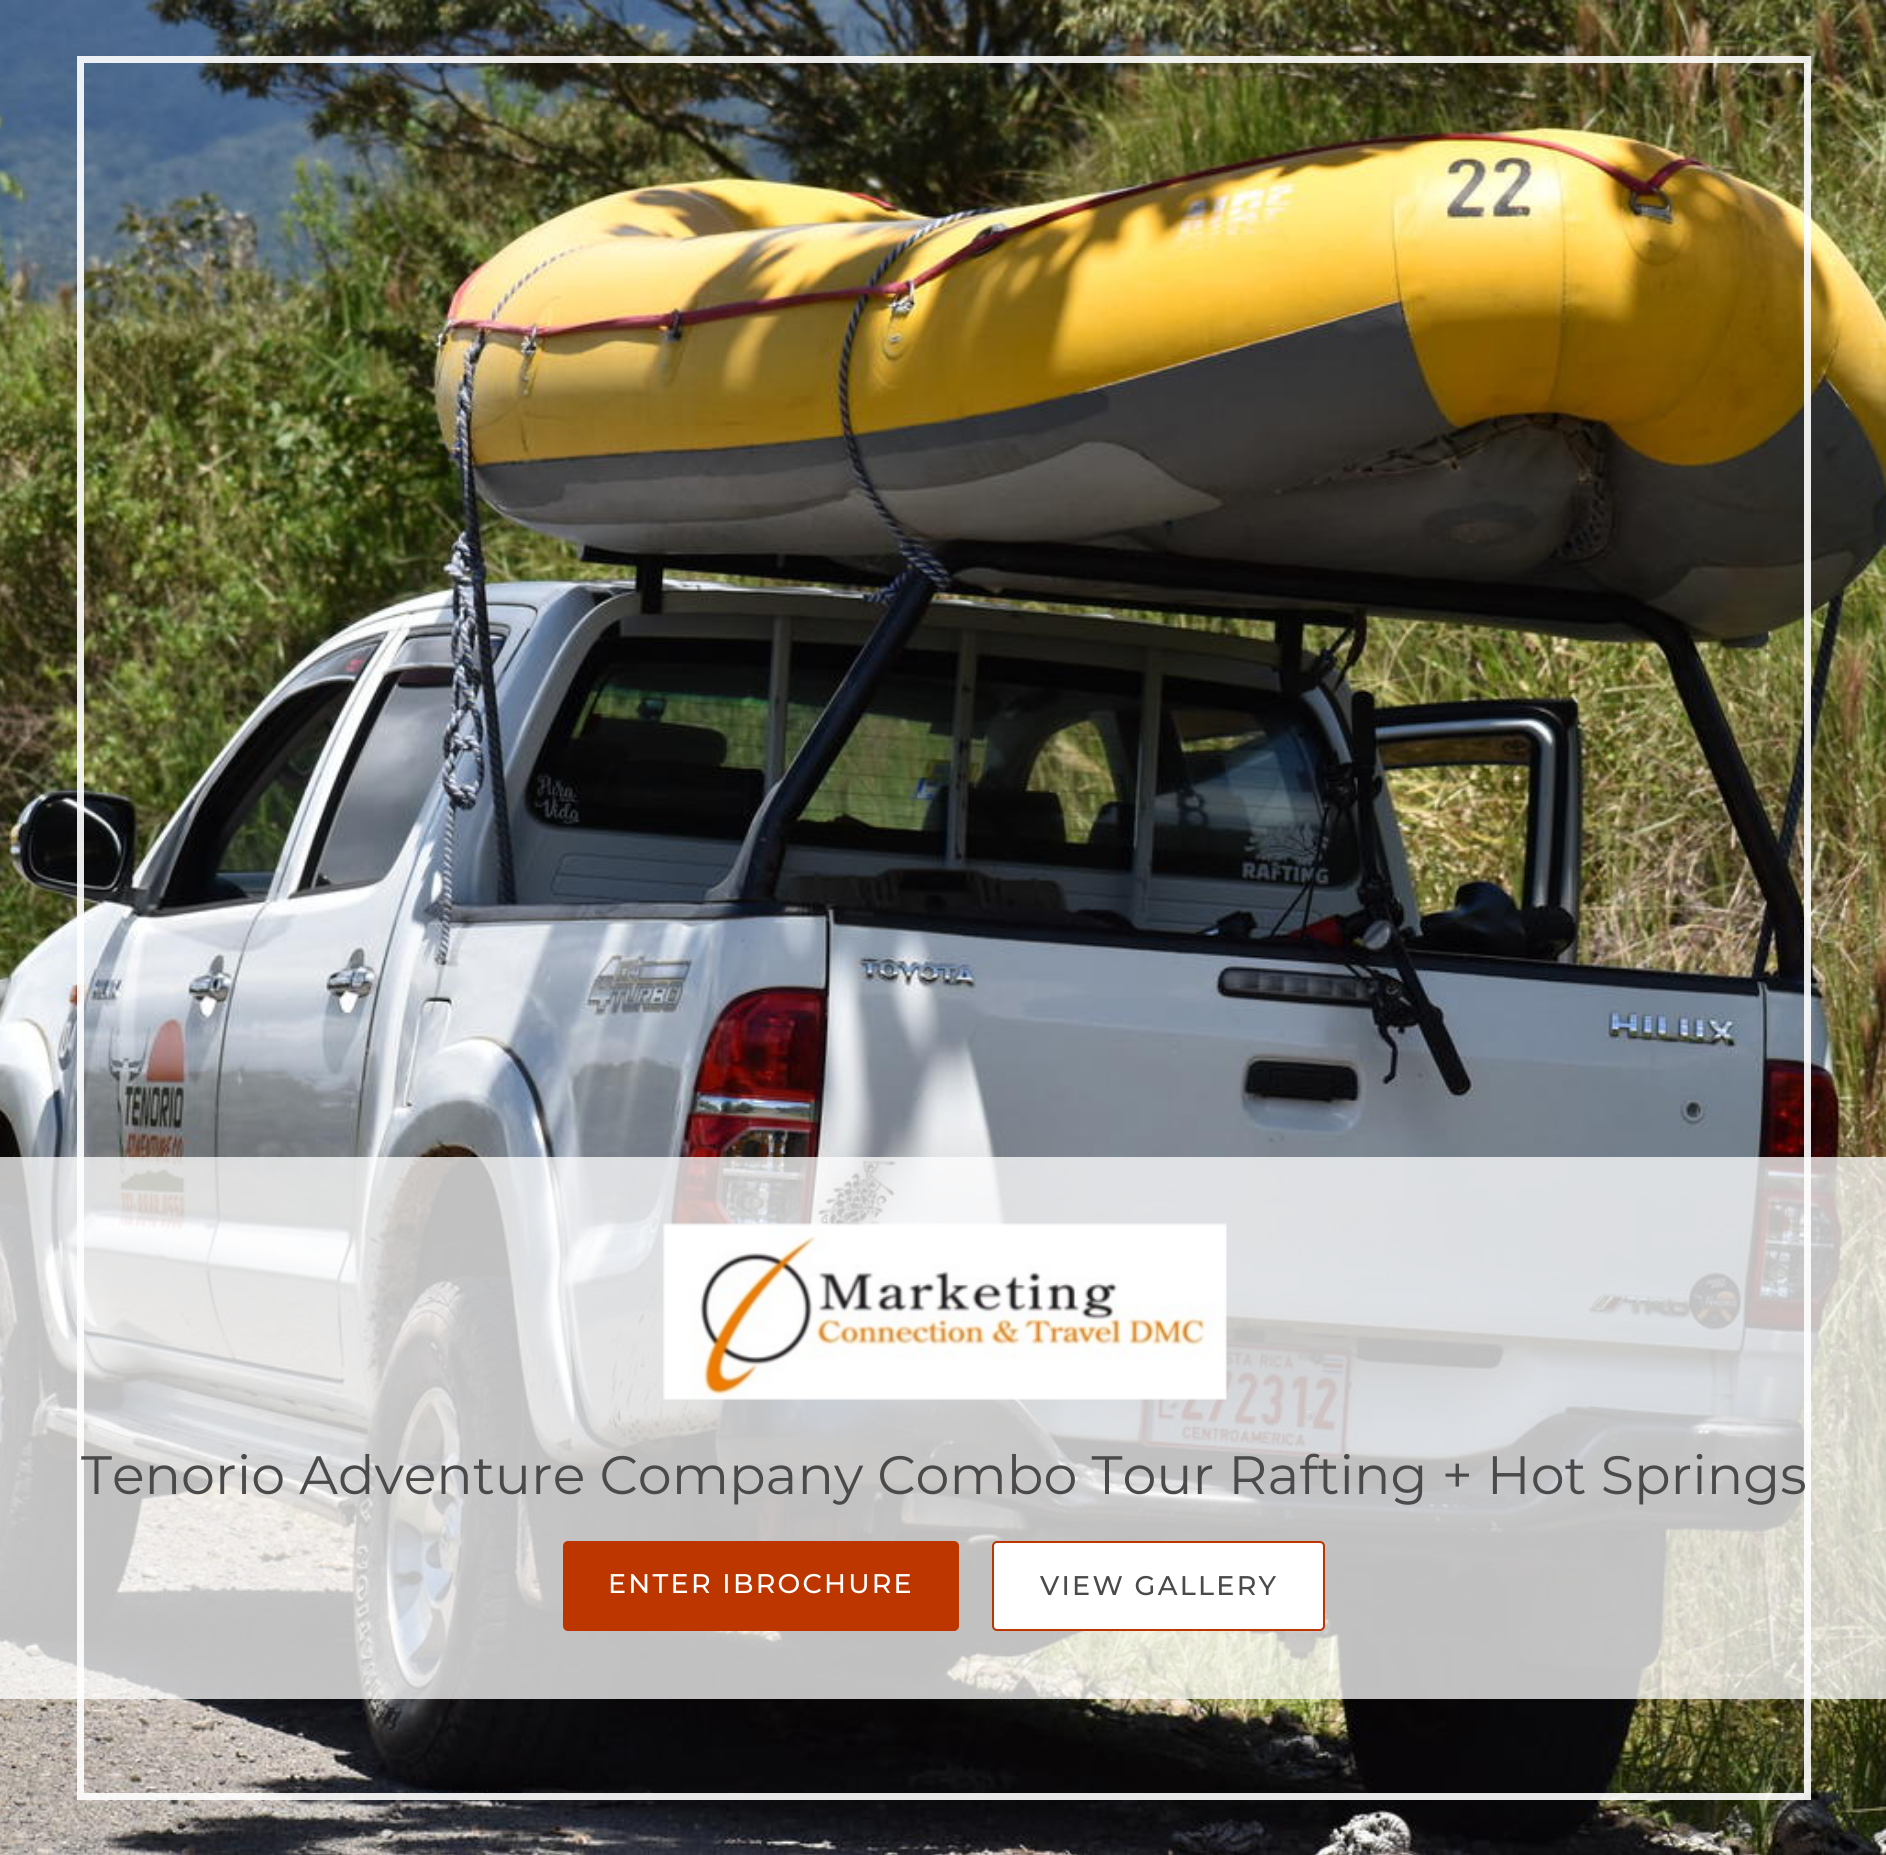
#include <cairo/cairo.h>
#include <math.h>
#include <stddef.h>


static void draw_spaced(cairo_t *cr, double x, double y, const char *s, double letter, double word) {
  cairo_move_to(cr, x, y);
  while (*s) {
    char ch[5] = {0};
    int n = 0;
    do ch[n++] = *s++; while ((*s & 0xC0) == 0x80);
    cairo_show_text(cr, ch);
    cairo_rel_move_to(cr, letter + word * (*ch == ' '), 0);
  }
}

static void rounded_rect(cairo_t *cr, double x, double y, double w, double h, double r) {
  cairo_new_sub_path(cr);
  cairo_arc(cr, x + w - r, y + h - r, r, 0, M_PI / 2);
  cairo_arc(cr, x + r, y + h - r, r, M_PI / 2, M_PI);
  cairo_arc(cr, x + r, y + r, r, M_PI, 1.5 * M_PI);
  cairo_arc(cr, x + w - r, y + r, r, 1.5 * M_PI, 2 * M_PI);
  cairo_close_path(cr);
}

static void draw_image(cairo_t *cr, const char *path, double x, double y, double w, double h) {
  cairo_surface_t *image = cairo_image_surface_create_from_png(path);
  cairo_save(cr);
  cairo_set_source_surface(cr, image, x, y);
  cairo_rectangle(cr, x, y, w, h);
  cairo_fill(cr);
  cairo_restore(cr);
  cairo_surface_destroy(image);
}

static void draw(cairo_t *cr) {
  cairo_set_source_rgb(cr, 1, 1, 1);
  cairo_paint(cr);
  draw_image(cr, "images/1.png", 0, 0, 1886, 1855);
  cairo_rectangle(cr, 80.5, 59.5, 1727, 1737);
  cairo_set_source_rgba(cr, 1, 1, 1, 0.9);
  cairo_set_line_width(cr, 7);
  cairo_stroke(cr);
  cairo_set_source_rgba(cr, 1, 1, 1, 0.75);
  cairo_rectangle(cr, 0, 1157, 1886, 542);
  cairo_fill(cr);
  draw_image(cr, "images/2.png", 663, 1223, 564, 177);
  cairo_set_source_rgb(cr, 189 / 255.0, 54 / 255.0, 0);
  rounded_rect(cr, 563, 1541, 396, 90, 5);
  cairo_fill(cr);
  cairo_set_source_rgb(cr, 1, 1, 1);
  rounded_rect(cr, 993, 1542, 331, 88, 4);
  cairo_fill_preserve(cr);
  cairo_set_source_rgb(cr, 189 / 255.0, 54 / 255.0, 0);
  cairo_set_line_width(cr, 2);
  cairo_stroke(cr);
  cairo_select_font_face(cr, "Montserrat", CAIRO_FONT_SLANT_NORMAL, CAIRO_FONT_WEIGHT_NORMAL);
  cairo_set_font_size(cr, 54);
  cairo_set_source_rgb(cr, 74 / 255.0, 74 / 255.0, 74 / 255.0);
  cairo_move_to(cr, 81, 1494);
  cairo_show_text(cr, "Tenorio Adventure Company Combo Tour Rafting + Hot Springs");
  cairo_select_font_face(cr, "Montserrat Medium", CAIRO_FONT_SLANT_NORMAL, CAIRO_FONT_WEIGHT_NORMAL);
  cairo_set_font_size(cr, 27);
  cairo_set_source_rgb(cr, 1, 1, 1);
  draw_spaced(cr, 608, 1593, "ENTER IBROCHURE", 2.25, 0);
  cairo_set_source_rgb(cr, 74 / 255.0, 74 / 255.0, 74 / 255.0);
  draw_spaced(cr, 1040, 1595, "VIEW GALLERY", 2.25, 0);
}

int main(void) {
  cairo_surface_t *surface = cairo_image_surface_create(CAIRO_FORMAT_RGB24, 1886, 1855);
  cairo_t *cr = cairo_create(surface);
  cairo_font_options_t *options = cairo_font_options_create();
  cairo_font_options_set_hint_metrics(options, CAIRO_HINT_METRICS_OFF);
  cairo_font_options_set_hint_style(options, CAIRO_HINT_STYLE_NONE);
  cairo_set_font_options(cr, options);
  cairo_set_miter_limit(cr, 4);
  draw(cr);
  cairo_surface_write_to_png(surface, "out.png");
  cairo_font_options_destroy(options);
  cairo_destroy(cr);
  cairo_surface_destroy(surface);
  return 0;
}
